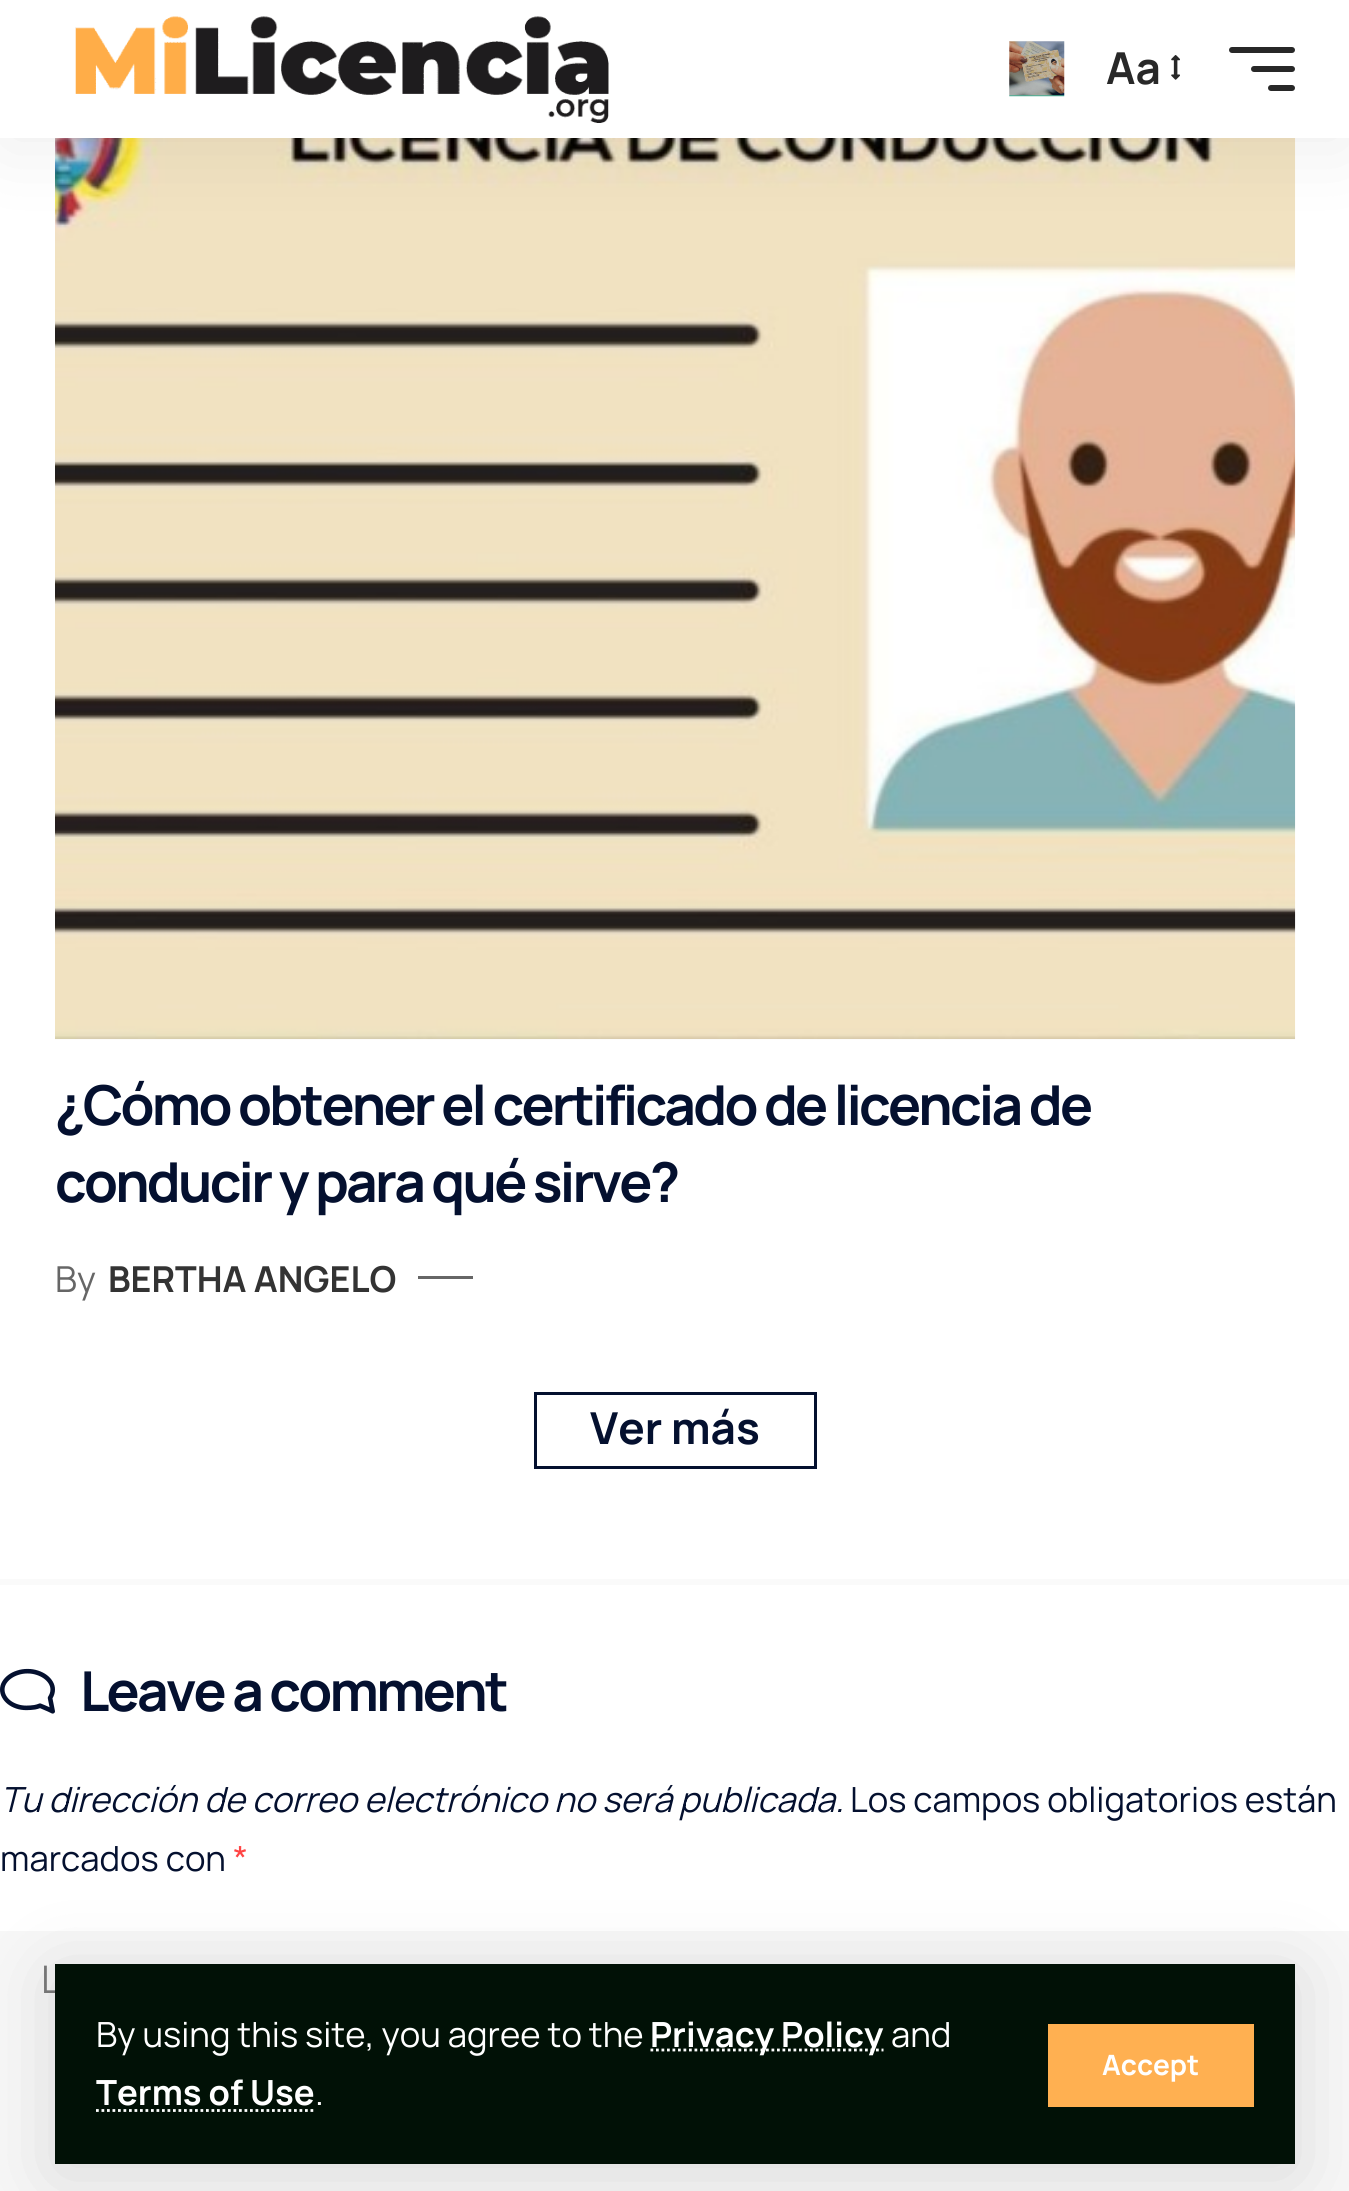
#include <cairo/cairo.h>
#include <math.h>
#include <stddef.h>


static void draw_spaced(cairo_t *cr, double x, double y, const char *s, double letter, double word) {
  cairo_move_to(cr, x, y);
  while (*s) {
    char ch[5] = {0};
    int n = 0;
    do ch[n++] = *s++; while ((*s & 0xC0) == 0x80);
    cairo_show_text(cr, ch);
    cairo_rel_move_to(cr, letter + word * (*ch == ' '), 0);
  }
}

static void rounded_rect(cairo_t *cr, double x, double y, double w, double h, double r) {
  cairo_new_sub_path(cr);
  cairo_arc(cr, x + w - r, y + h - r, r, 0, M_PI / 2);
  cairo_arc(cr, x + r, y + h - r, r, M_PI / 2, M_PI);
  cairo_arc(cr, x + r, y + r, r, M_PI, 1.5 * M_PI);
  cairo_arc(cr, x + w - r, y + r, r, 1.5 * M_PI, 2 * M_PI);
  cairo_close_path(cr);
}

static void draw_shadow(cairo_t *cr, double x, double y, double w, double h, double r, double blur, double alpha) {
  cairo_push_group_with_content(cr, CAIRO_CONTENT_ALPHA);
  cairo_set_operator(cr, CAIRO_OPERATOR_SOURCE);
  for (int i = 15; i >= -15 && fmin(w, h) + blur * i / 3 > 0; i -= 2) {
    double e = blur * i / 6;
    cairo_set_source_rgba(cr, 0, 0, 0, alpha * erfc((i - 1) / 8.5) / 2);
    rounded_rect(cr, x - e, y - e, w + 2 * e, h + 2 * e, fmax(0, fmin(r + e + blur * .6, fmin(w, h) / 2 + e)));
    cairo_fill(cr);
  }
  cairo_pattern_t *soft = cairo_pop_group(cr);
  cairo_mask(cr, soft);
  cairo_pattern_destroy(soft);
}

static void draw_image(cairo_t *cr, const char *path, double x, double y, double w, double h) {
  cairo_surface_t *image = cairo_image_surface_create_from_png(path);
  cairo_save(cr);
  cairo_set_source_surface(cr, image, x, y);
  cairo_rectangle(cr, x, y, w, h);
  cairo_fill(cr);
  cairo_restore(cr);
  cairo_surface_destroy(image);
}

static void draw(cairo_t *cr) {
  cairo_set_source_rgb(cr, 1, 1, 1);
  cairo_paint(cr);
  draw_image(cr, "images/4.png", 55, 138, 1241, 902);
  cairo_set_source_rgb(cr, 0, 0, 0);
  draw_shadow(cr, 0, 11, 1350, 138, 0, 41, 0.07);
  cairo_set_source_rgb(cr, 1, 1, 1);
  cairo_rectangle(cr, 0, 0, 1349, 138);
  cairo_fill(cr);
  draw_image(cr, "images/1.png", 75, 16, 534, 107);
  draw_image(cr, "images/2.png", 1009, 41, 56, 56);
  draw_image(cr, "images/3.png", 1171, 55, 9, 25);
  cairo_set_source_rgb(cr, 40 / 255.0, 40 / 255.0, 40 / 255.0);
  rounded_rect(cr, 1229, 47, 66, 6, 3);
  cairo_fill(cr);
  rounded_rect(cr, 1251, 66, 44, 6, 3);
  cairo_fill(cr);
  rounded_rect(cr, 1268, 85, 27, 6, 3);
  cairo_fill(cr);
  cairo_set_source_rgb(cr, 247 / 255.0, 247 / 255.0, 247 / 255.0);
  cairo_rectangle(cr, 0, 1931, 1349, 260);
  cairo_fill(cr);
  cairo_set_source_rgb(cr, 0, 0, 0);
  draw_shadow(cr, 55, 1975, 1240, 200, 0, 41, 0.12);
  cairo_set_source_rgb(cr, 102 / 255.0, 102 / 255.0, 102 / 255.0);
  cairo_rectangle(cr, 418, 1276, 55, 3);
  cairo_fill(cr);
  cairo_rectangle(cr, 535.5, 1393.5, 280, 74);
  cairo_set_source_rgb(cr, 4 / 255.0, 16 / 255.0, 47 / 255.0);
  cairo_set_line_width(cr, 3);
  cairo_stroke(cr);
  cairo_set_source_rgb(cr, 250 / 255.0, 250 / 255.0, 250 / 255.0);
  cairo_rectangle(cr, 0, 1579, 1349, 6);
  cairo_fill(cr);
  draw_image(cr, "images/5.png", 0, 1668, 55, 46);
  cairo_select_font_face(cr, "Manrope", CAIRO_FONT_SLANT_NORMAL, CAIRO_FONT_WEIGHT_BOLD);
  cairo_set_font_size(cr, 44);
  cairo_set_source_rgb(cr, 40 / 255.0, 40 / 255.0, 40 / 255.0);
  cairo_move_to(cr, 1106, 84);
  cairo_show_text(cr, "Aa");
  cairo_set_font_size(cr, 55);
  cairo_set_source_rgb(cr, 4 / 255.0, 16 / 255.0, 47 / 255.0);
  draw_spaced(cr, 55, 1125, "¿Cómo obtener el certificado de licencia de", -2.75, 0);
  draw_spaced(cr, 55, 1202, "conducir y para qué sirve?", -2.75, 0);
  cairo_select_font_face(cr, "Manrope", CAIRO_FONT_SLANT_NORMAL, CAIRO_FONT_WEIGHT_NORMAL);
  cairo_set_font_size(cr, 35.75);
  cairo_set_source_rgb(cr, 102 / 255.0, 102 / 255.0, 102 / 255.0);
  cairo_move_to(cr, 55, 1292);
  cairo_show_text(cr, "By");
  cairo_select_font_face(cr, "Manrope", CAIRO_FONT_SLANT_NORMAL, CAIRO_FONT_WEIGHT_BOLD);
  cairo_set_source_rgb(cr, 51 / 255.0, 51 / 255.0, 51 / 255.0);
  cairo_move_to(cr, 108, 1292);
  cairo_show_text(cr, "BERTHA ANGELO");
  cairo_set_font_size(cr, 44);
  cairo_set_source_rgb(cr, 4 / 255.0, 16 / 255.0, 47 / 255.0);
  cairo_move_to(cr, 590, 1444);
  cairo_show_text(cr, "Ver más");
  cairo_set_font_size(cr, 55);
  draw_spaced(cr, 80, 1711, "Leave a comment", -2.75, 0);
  cairo_select_font_face(cr, "Manrope", CAIRO_FONT_SLANT_ITALIC, CAIRO_FONT_WEIGHT_NORMAL);
  cairo_set_font_size(cr, 34.65);
  cairo_move_to(cr, 0, 1812);
  cairo_show_text(cr, "Tu dirección de correo electrónico no será publicada.");
  cairo_select_font_face(cr, "Manrope", CAIRO_FONT_SLANT_NORMAL, CAIRO_FONT_WEIGHT_NORMAL);
  cairo_move_to(cr, 850, 1812);
  cairo_show_text(cr, "Los campos obligatorios están");
  cairo_move_to(cr, 0, 1871);
  cairo_show_text(cr, "marcados con");
  cairo_set_source_rgb(cr, 1, 69 / 255.0, 69 / 255.0);
  cairo_move_to(cr, 233, 1871);
  cairo_show_text(cr, "*");
  cairo_set_font_size(cr, 38);
  cairo_set_source_rgb(cr, 117 / 255.0, 117 / 255.0, 117 / 255.0);
  cairo_move_to(cr, 41, 1993);
  cairo_show_text(cr, "L");
  cairo_set_source_rgb(cr, 1 / 255.0, 17 / 255.0, 6 / 255.0);
  cairo_rectangle(cr, 55, 1964, 1240, 200);
  cairo_fill(cr);
  cairo_set_source_rgb(cr, 1, 176 / 255.0, 81 / 255.0);
  cairo_rectangle(cr, 1048, 2024, 206, 83);
  cairo_fill(cr);
  cairo_select_font_face(cr, "Manrope", CAIRO_FONT_SLANT_NORMAL, CAIRO_FONT_WEIGHT_BOLD);
  cairo_set_font_size(cr, 28);
  cairo_set_source_rgb(cr, 1, 1, 1);
  cairo_move_to(cr, 1102, 2075);
  cairo_show_text(cr, "Accept");
  cairo_select_font_face(cr, "Manrope", CAIRO_FONT_SLANT_NORMAL, CAIRO_FONT_WEIGHT_NORMAL);
  cairo_set_font_size(cr, 34.65);
  cairo_move_to(cr, 315, 2105);
  cairo_show_text(cr, ".");
  cairo_select_font_face(cr, "Manrope", CAIRO_FONT_SLANT_NORMAL, CAIRO_FONT_WEIGHT_BOLD);
  cairo_move_to(cr, 96, 2105);
  cairo_show_text(cr, "Terms of Use");
  cairo_new_path(cr);
  cairo_move_to(cr, 96, 2110.5);
  cairo_line_to(cr, 314.5, 2110.5);
  cairo_set_line_width(cr, 2.8);
  cairo_set_dash(cr, (double[]){2.75, 2.75}, 2, 0);
  cairo_stroke(cr);
  cairo_select_font_face(cr, "Manrope", CAIRO_FONT_SLANT_NORMAL, CAIRO_FONT_WEIGHT_NORMAL);
  cairo_move_to(cr, 891, 2047);
  cairo_show_text(cr, "and");
  cairo_new_path(cr);
  cairo_move_to(cr, 650.5, 2050);
  cairo_line_to(cr, 883.5, 2050);
  cairo_stroke(cr);
  cairo_select_font_face(cr, "Manrope", CAIRO_FONT_SLANT_NORMAL, CAIRO_FONT_WEIGHT_BOLD);
  cairo_move_to(cr, 650, 2047);
  cairo_show_text(cr, "Privacy Policy");
  cairo_select_font_face(cr, "Manrope", CAIRO_FONT_SLANT_NORMAL, CAIRO_FONT_WEIGHT_NORMAL);
  cairo_move_to(cr, 96, 2047);
  cairo_show_text(cr, "By using this site, you agree to the");
}

int main(void) {
  cairo_surface_t *surface = cairo_image_surface_create(CAIRO_FORMAT_RGB24, 1349, 2191);
  cairo_t *cr = cairo_create(surface);
  cairo_font_options_t *options = cairo_font_options_create();
  cairo_font_options_set_hint_metrics(options, CAIRO_HINT_METRICS_OFF);
  cairo_font_options_set_hint_style(options, CAIRO_HINT_STYLE_NONE);
  cairo_set_font_options(cr, options);
  cairo_set_miter_limit(cr, 4);
  draw(cr);
  cairo_surface_write_to_png(surface, "out.png");
  cairo_font_options_destroy(options);
  cairo_destroy(cr);
  cairo_surface_destroy(surface);
  return 0;
}
